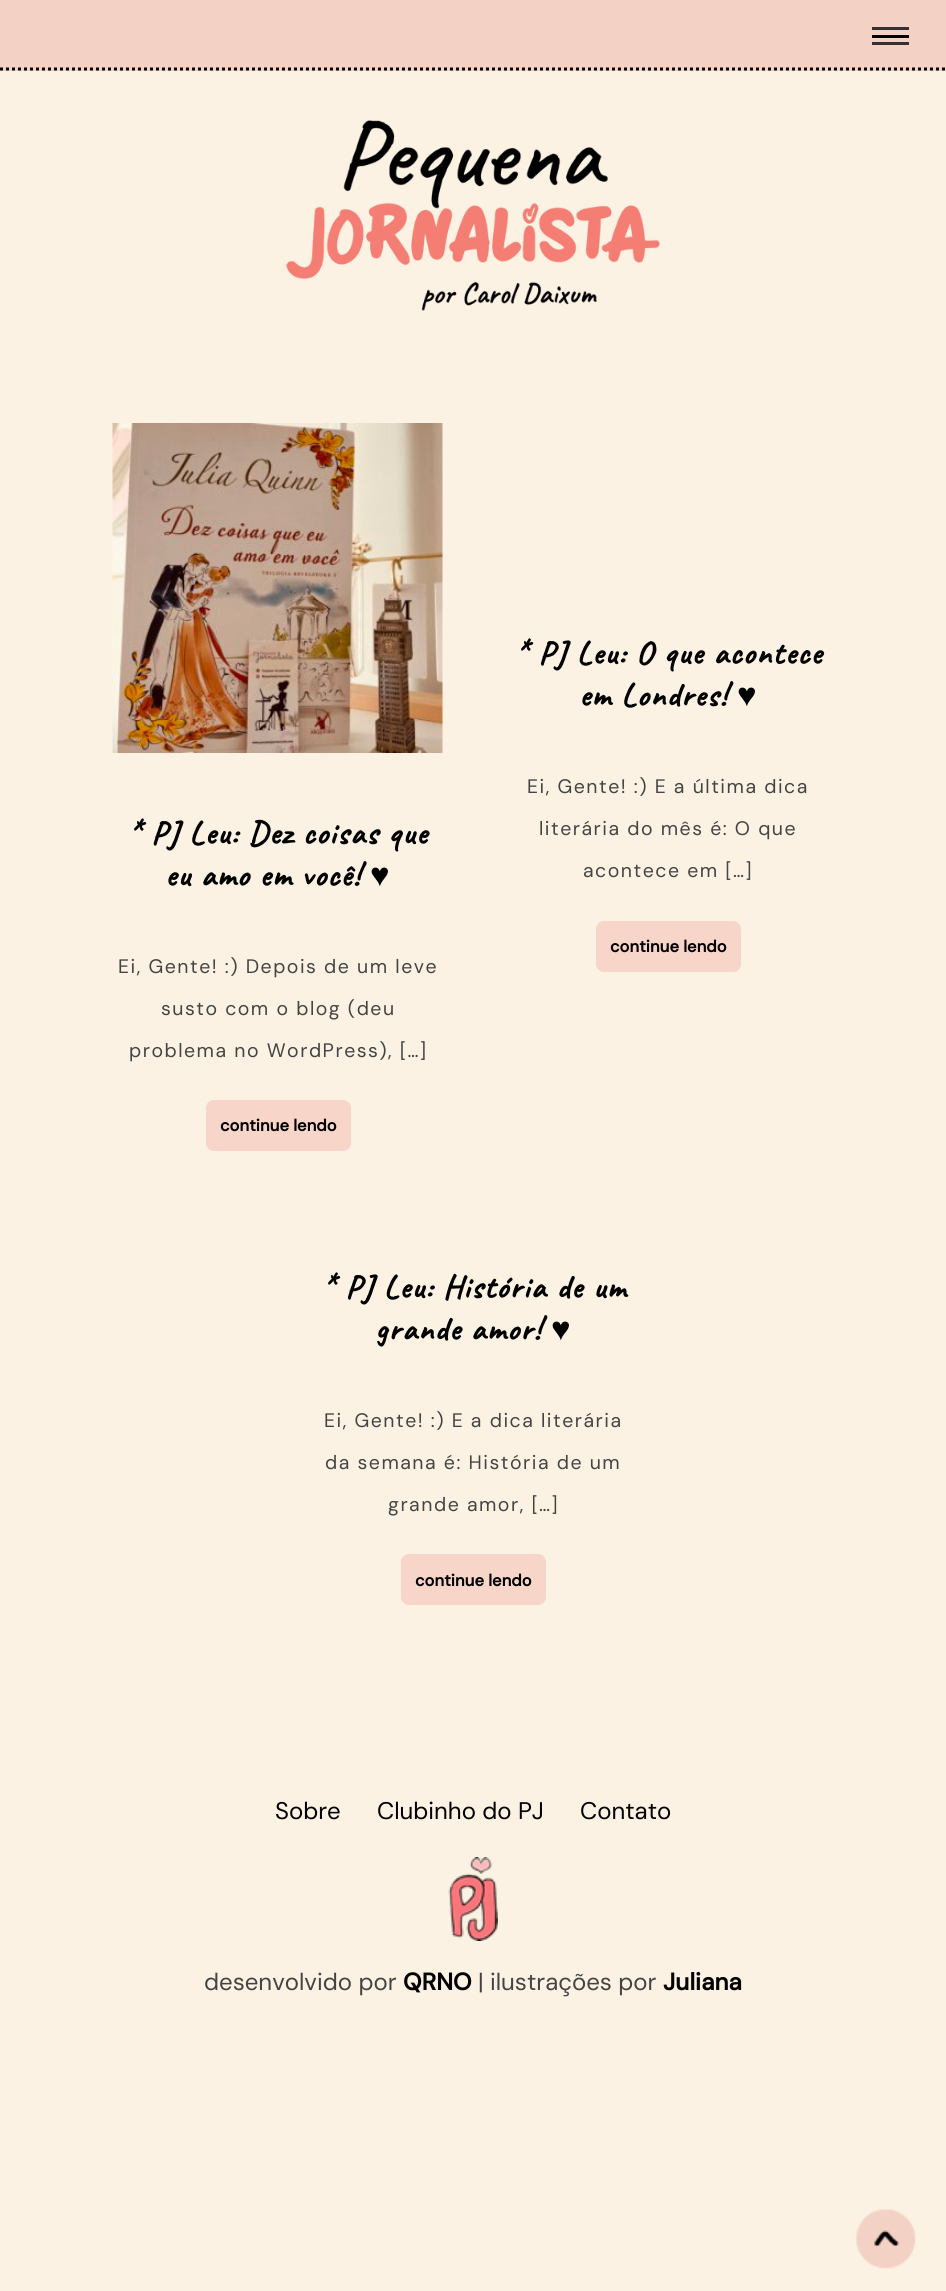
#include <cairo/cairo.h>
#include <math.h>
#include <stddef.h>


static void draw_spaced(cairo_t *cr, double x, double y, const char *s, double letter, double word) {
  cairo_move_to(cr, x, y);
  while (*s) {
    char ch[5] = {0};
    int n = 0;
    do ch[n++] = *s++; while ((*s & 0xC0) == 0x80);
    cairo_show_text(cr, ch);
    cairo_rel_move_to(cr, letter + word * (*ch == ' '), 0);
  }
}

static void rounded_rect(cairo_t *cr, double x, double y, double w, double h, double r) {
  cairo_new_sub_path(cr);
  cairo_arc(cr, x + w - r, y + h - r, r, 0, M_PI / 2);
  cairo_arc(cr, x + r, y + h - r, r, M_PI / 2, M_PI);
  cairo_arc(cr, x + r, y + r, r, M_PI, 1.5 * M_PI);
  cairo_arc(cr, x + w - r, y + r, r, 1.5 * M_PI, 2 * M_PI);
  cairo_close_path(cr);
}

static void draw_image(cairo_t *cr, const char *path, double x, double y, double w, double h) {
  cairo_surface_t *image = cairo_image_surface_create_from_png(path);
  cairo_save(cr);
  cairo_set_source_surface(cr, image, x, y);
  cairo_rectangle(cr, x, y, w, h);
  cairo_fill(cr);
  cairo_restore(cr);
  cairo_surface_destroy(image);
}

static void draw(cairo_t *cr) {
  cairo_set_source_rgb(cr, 251 / 255.0, 242 / 255.0, 227 / 255.0);
  cairo_paint(cr);
  cairo_set_source_rgb(cr, 243 / 255.0, 210 / 255.0, 197 / 255.0);
  cairo_rectangle(cr, 0, 0, 946, 71);
  cairo_fill(cr);
  cairo_new_path(cr);
  cairo_move_to(cr, 0, 69);
  cairo_line_to(cr, 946.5, 69);
  cairo_set_source_rgb(cr, 0, 0, 0);
  cairo_set_line_width(cr, 3);
  cairo_set_dash(cr, (double[]){3, 3}, 2, 0);
  cairo_stroke(cr);
  cairo_set_source_rgb(cr, 51 / 255.0, 51 / 255.0, 51 / 255.0);
  cairo_rectangle(cr, 872, 27, 37, 3);
  cairo_fill(cr);
  cairo_rectangle(cr, 872, 42, 37, 3);
  cairo_fill(cr);
  cairo_set_source_rgb(cr, 0, 0, 0);
  cairo_rectangle(cr, 872, 35, 37, 3);
  cairo_fill(cr);
  draw_image(cr, "images/1.png", 286, 120, 374, 191);
  draw_image(cr, "images/2.png", 112, 423, 331, 330);
  cairo_set_source_rgb(cr, 247 / 255.0, 213 / 255.0, 201 / 255.0);
  rounded_rect(cr, 206, 1100, 145, 51, 8);
  cairo_fill(cr);
  rounded_rect(cr, 596, 921, 145, 51, 8);
  cairo_fill(cr);
  rounded_rect(cr, 401, 1554, 145, 51, 8);
  cairo_fill(cr);
  draw_image(cr, "images/3.png", 448, 1857, 50, 84);
  draw_image(cr, "images/4.png", 856, 2209, 60, 60);
  cairo_select_font_face(cr, "Caveat", CAIRO_FONT_SLANT_NORMAL, CAIRO_FONT_WEIGHT_BOLD);
  cairo_set_font_size(cr, 33);
  cairo_set_source_rgb(cr, 0, 0, 0);
  draw_spaced(cr, 128, 844, "* PJ Leu: Dez coisas que", 1.5, 0);
  draw_spaced(cr, 165, 886, "eu amo em você!", 1.5, 0);
  cairo_select_font_face(cr, "Liberation Serif", CAIRO_FONT_SLANT_NORMAL, CAIRO_FONT_WEIGHT_BOLD);
  draw_spaced(cr, 370, 886, "♥", 1.5, 0);
  cairo_select_font_face(cr, "DM Sans", CAIRO_FONT_SLANT_NORMAL, CAIRO_FONT_WEIGHT_NORMAL);
  cairo_set_font_size(cr, 19.5);
  cairo_set_source_rgb(cr, 68 / 255.0, 68 / 255.0, 68 / 255.0);
  draw_spaced(cr, 118, 973, "Ei, Gente! :) Depois de um leve", 1.5, 0);
  draw_spaced(cr, 161, 1015, "susto com o blog (deu", 1.5, 0);
  draw_spaced(cr, 129, 1057, "problema no WordPress), […]", 1.5, 0);
  cairo_select_font_face(cr, "DM Sans", CAIRO_FONT_SLANT_NORMAL, CAIRO_FONT_WEIGHT_BOLD);
  cairo_set_font_size(cr, 16.5);
  cairo_set_source_rgb(cr, 0, 0, 0);
  cairo_move_to(cr, 220, 1131);
  cairo_show_text(cr, "continue lendo");
  cairo_select_font_face(cr, "Caveat", CAIRO_FONT_SLANT_NORMAL, CAIRO_FONT_WEIGHT_BOLD);
  cairo_set_font_size(cr, 33);
  draw_spaced(cr, 515, 664, "* PJ Leu: O que acontece", 1.5, 0.25);
  draw_spaced(cr, 579, 706, "em Londres!", 1.5, 0);
  cairo_select_font_face(cr, "Liberation Serif", CAIRO_FONT_SLANT_NORMAL, CAIRO_FONT_WEIGHT_BOLD);
  draw_spaced(cr, 737, 706, "♥", 1.5, 0);
  cairo_select_font_face(cr, "DM Sans", CAIRO_FONT_SLANT_NORMAL, CAIRO_FONT_WEIGHT_NORMAL);
  cairo_set_font_size(cr, 19.5);
  cairo_set_source_rgb(cr, 68 / 255.0, 68 / 255.0, 68 / 255.0);
  draw_spaced(cr, 527, 793, "Ei, Gente! :) E a última dica", 1.5, 0);
  draw_spaced(cr, 539, 835, "literária do mês é: O que", 1.5, 0);
  draw_spaced(cr, 583, 877, "acontece em […]", 1.5, 0);
  cairo_select_font_face(cr, "DM Sans", CAIRO_FONT_SLANT_NORMAL, CAIRO_FONT_WEIGHT_BOLD);
  cairo_set_font_size(cr, 16.5);
  cairo_set_source_rgb(cr, 0, 0, 0);
  cairo_move_to(cr, 610, 952);
  cairo_show_text(cr, "continue lendo");
  cairo_select_font_face(cr, "Caveat", CAIRO_FONT_SLANT_NORMAL, CAIRO_FONT_WEIGHT_BOLD);
  cairo_set_font_size(cr, 33);
  draw_spaced(cr, 322, 1298, "* PJ Leu: História de um", 1.5, 0.25);
  draw_spaced(cr, 375, 1340, "grande amor!", 1.5, 0);
  cairo_select_font_face(cr, "Liberation Serif", CAIRO_FONT_SLANT_NORMAL, CAIRO_FONT_WEIGHT_BOLD);
  draw_spaced(cr, 551, 1340, "♥", 1.5, 0);
  cairo_select_font_face(cr, "DM Sans", CAIRO_FONT_SLANT_NORMAL, CAIRO_FONT_WEIGHT_NORMAL);
  cairo_set_font_size(cr, 19.5);
  cairo_set_source_rgb(cr, 68 / 255.0, 68 / 255.0, 68 / 255.0);
  draw_spaced(cr, 324, 1427, "Ei, Gente! :) E a dica literária", 1.5, 0);
  draw_spaced(cr, 325, 1469, "da semana é: História de um", 1.5, 0);
  draw_spaced(cr, 388, 1511, "grande amor, […]", 1.5, 0);
  cairo_select_font_face(cr, "DM Sans", CAIRO_FONT_SLANT_NORMAL, CAIRO_FONT_WEIGHT_BOLD);
  cairo_set_font_size(cr, 16.5);
  cairo_set_source_rgb(cr, 0, 0, 0);
  cairo_move_to(cr, 415, 1586);
  cairo_show_text(cr, "continue lendo");
  cairo_select_font_face(cr, "DM Sans", CAIRO_FONT_SLANT_NORMAL, CAIRO_FONT_WEIGHT_NORMAL);
  cairo_set_font_size(cr, 24);
  cairo_move_to(cr, 275, 1819);
  cairo_show_text(cr, "Sobre");
  cairo_move_to(cr, 377, 1819);
  cairo_show_text(cr, "Clubinho do PJ");
  cairo_move_to(cr, 580, 1819);
  cairo_show_text(cr, "Contato");
  cairo_set_source_rgb(cr, 68 / 255.0, 68 / 255.0, 68 / 255.0);
  cairo_move_to(cr, 204, 1990);
  cairo_show_text(cr, "desenvolvido por");
  cairo_select_font_face(cr, "DM Sans", CAIRO_FONT_SLANT_NORMAL, CAIRO_FONT_WEIGHT_BOLD);
  cairo_set_source_rgb(cr, 0, 0, 0);
  cairo_move_to(cr, 403, 1990);
  cairo_show_text(cr, "QRNO");
  cairo_select_font_face(cr, "DM Sans", CAIRO_FONT_SLANT_NORMAL, CAIRO_FONT_WEIGHT_NORMAL);
  cairo_set_source_rgb(cr, 68 / 255.0, 68 / 255.0, 68 / 255.0);
  cairo_move_to(cr, 478, 1990);
  cairo_show_text(cr, "| ilustrações por");
  cairo_select_font_face(cr, "DM Sans", CAIRO_FONT_SLANT_NORMAL, CAIRO_FONT_WEIGHT_BOLD);
  cairo_set_source_rgb(cr, 0, 0, 0);
  cairo_move_to(cr, 663, 1990);
  cairo_show_text(cr, "Juliana");
}

int main(void) {
  cairo_surface_t *surface = cairo_image_surface_create(CAIRO_FORMAT_RGB24, 946, 2291);
  cairo_t *cr = cairo_create(surface);
  cairo_font_options_t *options = cairo_font_options_create();
  cairo_font_options_set_hint_metrics(options, CAIRO_HINT_METRICS_OFF);
  cairo_font_options_set_hint_style(options, CAIRO_HINT_STYLE_NONE);
  cairo_set_font_options(cr, options);
  cairo_set_miter_limit(cr, 4);
  draw(cr);
  cairo_surface_write_to_png(surface, "out.png");
  cairo_font_options_destroy(options);
  cairo_destroy(cr);
  cairo_surface_destroy(surface);
  return 0;
}
